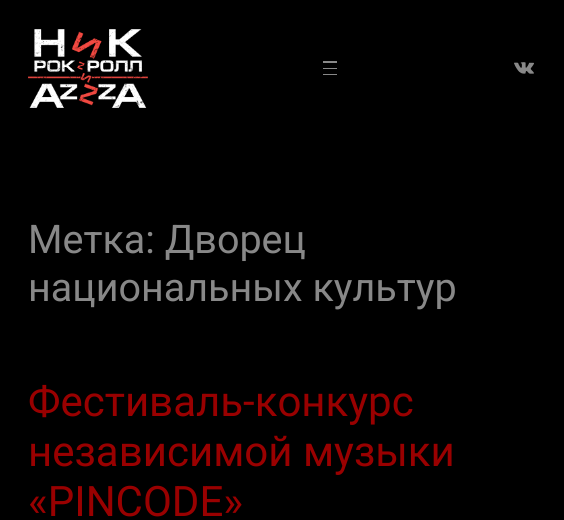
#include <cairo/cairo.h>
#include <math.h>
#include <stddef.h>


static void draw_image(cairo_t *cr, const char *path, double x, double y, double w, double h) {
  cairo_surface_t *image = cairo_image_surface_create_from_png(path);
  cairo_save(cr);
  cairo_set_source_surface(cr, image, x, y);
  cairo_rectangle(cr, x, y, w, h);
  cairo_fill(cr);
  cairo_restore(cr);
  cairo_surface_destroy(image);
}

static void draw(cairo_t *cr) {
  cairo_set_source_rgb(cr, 0, 0, 0);
  cairo_paint(cr);
  draw_image(cr, "images/1.png", 28, 29, 120, 79);
  cairo_set_source_rgb(cr, 136 / 255.0, 136 / 255.0, 136 / 255.0);
  cairo_rectangle(cr, 323, 61, 14, 2);
  cairo_fill(cr);
  cairo_rectangle(cr, 323, 68, 14, 1);
  cairo_fill(cr);
  cairo_rectangle(cr, 323, 74, 14, 1);
  cairo_fill(cr);
  draw_image(cr, "images/2.png", 514, 62, 20, 12);
  cairo_select_font_face(cr, "Roboto", CAIRO_FONT_SLANT_NORMAL, CAIRO_FONT_WEIGHT_NORMAL);
  cairo_set_font_size(cr, 39.5);
  cairo_move_to(cr, 28, 253);
  cairo_show_text(cr, "Метка: Дворец");
  cairo_move_to(cr, 28, 301);
  cairo_show_text(cr, "национальных культур");
  cairo_set_font_size(cr, 42);
  cairo_set_source_rgb(cr, 153 / 255.0, 0, 0);
  cairo_move_to(cr, 28, 416);
  cairo_show_text(cr, "Фестиваль-конкурс");
  cairo_move_to(cr, 28, 466);
  cairo_show_text(cr, "независимой музыки");
  cairo_move_to(cr, 28, 516);
  cairo_show_text(cr, "«PINCODE»");
}

int main(void) {
  cairo_surface_t *surface = cairo_image_surface_create(CAIRO_FORMAT_RGB24, 564, 520);
  cairo_t *cr = cairo_create(surface);
  cairo_font_options_t *options = cairo_font_options_create();
  cairo_font_options_set_hint_metrics(options, CAIRO_HINT_METRICS_OFF);
  cairo_font_options_set_hint_style(options, CAIRO_HINT_STYLE_NONE);
  cairo_set_font_options(cr, options);
  cairo_set_miter_limit(cr, 4);
  draw(cr);
  cairo_surface_write_to_png(surface, "out.png");
  cairo_font_options_destroy(options);
  cairo_destroy(cr);
  cairo_surface_destroy(surface);
  return 0;
}
